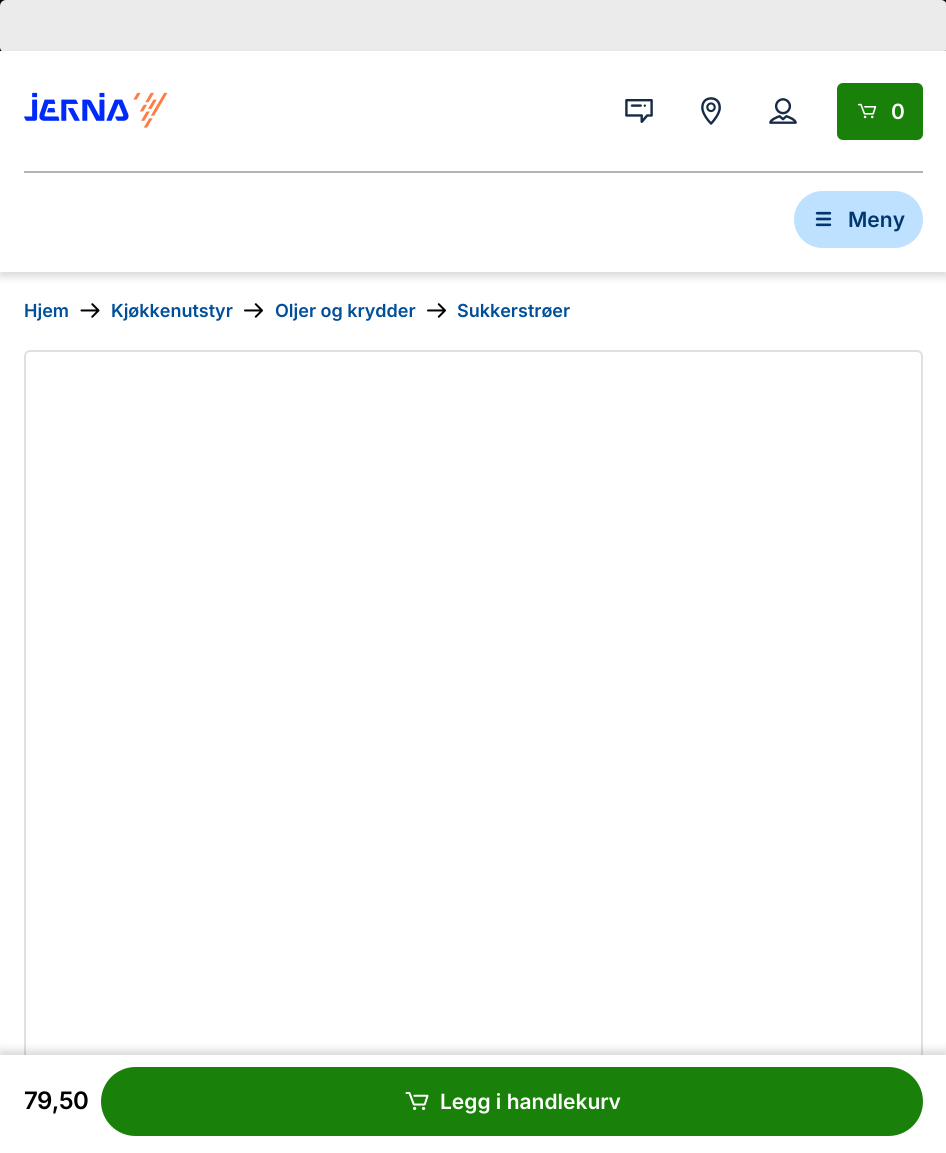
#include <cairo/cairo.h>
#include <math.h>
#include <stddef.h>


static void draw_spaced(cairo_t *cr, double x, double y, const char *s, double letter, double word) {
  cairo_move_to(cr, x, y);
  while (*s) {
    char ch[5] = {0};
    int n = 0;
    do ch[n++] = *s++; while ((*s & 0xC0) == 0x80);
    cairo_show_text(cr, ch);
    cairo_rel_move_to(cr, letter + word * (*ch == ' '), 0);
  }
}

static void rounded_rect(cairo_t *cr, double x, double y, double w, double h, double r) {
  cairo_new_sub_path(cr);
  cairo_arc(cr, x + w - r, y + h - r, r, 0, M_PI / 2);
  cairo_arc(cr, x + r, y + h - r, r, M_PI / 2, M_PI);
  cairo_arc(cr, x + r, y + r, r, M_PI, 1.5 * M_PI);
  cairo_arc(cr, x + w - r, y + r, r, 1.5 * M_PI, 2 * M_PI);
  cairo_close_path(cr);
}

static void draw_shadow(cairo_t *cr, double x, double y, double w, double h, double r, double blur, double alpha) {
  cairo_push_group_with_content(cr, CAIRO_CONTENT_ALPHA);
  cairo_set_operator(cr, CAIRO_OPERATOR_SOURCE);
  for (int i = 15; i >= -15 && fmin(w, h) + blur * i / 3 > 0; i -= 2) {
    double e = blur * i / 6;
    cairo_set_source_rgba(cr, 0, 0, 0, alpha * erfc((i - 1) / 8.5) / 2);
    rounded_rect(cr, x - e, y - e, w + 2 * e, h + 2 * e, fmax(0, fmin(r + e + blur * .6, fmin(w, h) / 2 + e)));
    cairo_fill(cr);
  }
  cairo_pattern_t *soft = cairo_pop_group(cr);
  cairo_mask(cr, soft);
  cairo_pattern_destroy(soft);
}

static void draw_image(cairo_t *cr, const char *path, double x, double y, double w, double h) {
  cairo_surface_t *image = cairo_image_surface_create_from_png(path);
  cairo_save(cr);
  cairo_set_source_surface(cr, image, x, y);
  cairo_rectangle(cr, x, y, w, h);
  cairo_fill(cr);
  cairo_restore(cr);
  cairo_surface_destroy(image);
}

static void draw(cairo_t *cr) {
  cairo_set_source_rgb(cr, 1, 1, 1);
  cairo_paint(cr);
  cairo_set_source_rgb(cr, 0, 0, 0);
  cairo_rectangle(cr, 0, 0, 946, 51);
  cairo_fill(cr);
  cairo_set_source_rgb(cr, 235 / 255.0, 235 / 255.0, 235 / 255.0);
  rounded_rect(cr, 0, 0, 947, 53, 6);
  cairo_fill(cr);
  cairo_set_source_rgb(cr, 0, 0, 0);
  draw_shadow(cr, 0, 57, 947, 221, 0, 4.5, 0.1);
  draw_shadow(cr, 0, 54, 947, 221, 0, 3, 0.06);
  cairo_set_source_rgb(cr, 1, 1, 1);
  cairo_rectangle(cr, 0, 51, 946, 221);
  cairo_fill(cr);
  draw_image(cr, "images/1.png", 24, 92, 144, 36);
  draw_image(cr, "images/2.png", 625, 99, 28, 24);
  draw_image(cr, "images/3.png", 701, 97, 20, 28);
  draw_image(cr, "images/4.png", 769, 98, 28, 26);
  cairo_set_source_rgb(cr, 25 / 255.0, 128 / 255.0, 9 / 255.0);
  rounded_rect(cr, 837, 83, 86, 57, 6);
  cairo_fill(cr);
  draw_image(cr, "images/5.png", 857, 103, 20, 16);
  cairo_set_source_rgb(cr, 179 / 255.0, 179 / 255.0, 179 / 255.0);
  cairo_rectangle(cr, 24, 171, 899, 2);
  cairo_fill(cr);
  cairo_set_source_rgb(cr, 190 / 255.0, 225 / 255.0, 1);
  rounded_rect(cr, 794, 191, 129, 57, 28.5);
  cairo_fill(cr);
  draw_image(cr, "images/6.png", 815, 211, 17, 16);
  draw_image(cr, "images/7.png", 80, 303, 20, 15);
  draw_image(cr, "images/8.png", 244, 303, 19, 15);
  draw_image(cr, "images/8.png", 427, 303, 19, 15);
  rounded_rect(cr, 25, 351, 897, 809, 5);
  cairo_set_source_rgb(cr, 224 / 255.0, 224 / 255.0, 224 / 255.0);
  cairo_stroke(cr);
  cairo_set_source_rgb(cr, 0, 0, 0);
  draw_shadow(cr, 0, 1049, 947, 99, 0, 4.5, 0.1);
  draw_shadow(cr, 0, 1052, 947, 99, 0, 3, 0.06);
  cairo_set_source_rgb(cr, 1, 1, 1);
  cairo_rectangle(cr, 0, 1055, 946, 98);
  cairo_fill(cr);
  cairo_set_source_rgb(cr, 25 / 255.0, 128 / 255.0, 9 / 255.0);
  rounded_rect(cr, 101, 1067, 822, 69, 34.5);
  cairo_fill(cr);
  draw_image(cr, "images/9.png", 405, 1092, 24, 19);
  cairo_select_font_face(cr, "Inter SemiBold", CAIRO_FONT_SLANT_NORMAL, CAIRO_FONT_WEIGHT_NORMAL);
  cairo_set_font_size(cr, 21);
  cairo_set_source_rgb(cr, 1, 1, 1);
  cairo_move_to(cr, 891, 119);
  cairo_show_text(cr, "0");
  cairo_set_source_rgb(cr, 0, 55 / 255.0, 110 / 255.0);
  cairo_move_to(cr, 848, 227);
  cairo_show_text(cr, "Meny");
  cairo_set_font_size(cr, 18);
  cairo_set_source_rgb(cr, 0, 79 / 255.0, 154 / 255.0);
  cairo_move_to(cr, 24, 317);
  cairo_show_text(cr, "Hjem");
  cairo_move_to(cr, 111, 317);
  cairo_show_text(cr, "Kjøkkenutstyr");
  cairo_move_to(cr, 275, 317);
  cairo_show_text(cr, "Oljer og krydder");
  cairo_move_to(cr, 457, 317);
  cairo_show_text(cr, "Sukkerstrøer");
  cairo_set_font_size(cr, 24);
  cairo_set_source_rgb(cr, 0, 0, 0);
  draw_spaced(cr, 24, 1109, "79,50", -0.75, 0);
  cairo_set_font_size(cr, 21);
  cairo_set_source_rgb(cr, 1, 1, 1);
  cairo_move_to(cr, 440, 1109);
  cairo_show_text(cr, "Legg i handlekurv");
}

int main(void) {
  cairo_surface_t *surface = cairo_image_surface_create(CAIRO_FORMAT_RGB24, 946, 1153);
  cairo_t *cr = cairo_create(surface);
  cairo_font_options_t *options = cairo_font_options_create();
  cairo_font_options_set_hint_metrics(options, CAIRO_HINT_METRICS_OFF);
  cairo_font_options_set_hint_style(options, CAIRO_HINT_STYLE_NONE);
  cairo_set_font_options(cr, options);
  cairo_set_miter_limit(cr, 4);
  draw(cr);
  cairo_surface_write_to_png(surface, "out.png");
  cairo_font_options_destroy(options);
  cairo_destroy(cr);
  cairo_surface_destroy(surface);
  return 0;
}
